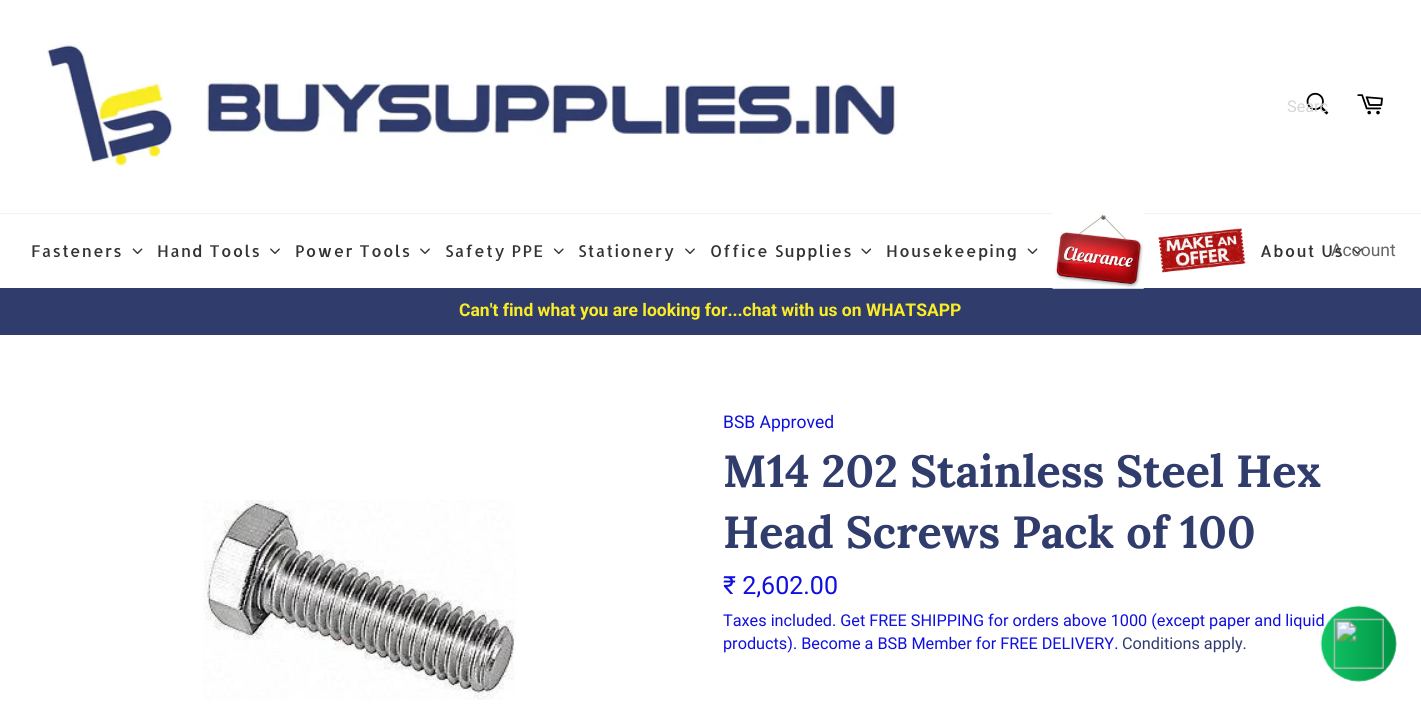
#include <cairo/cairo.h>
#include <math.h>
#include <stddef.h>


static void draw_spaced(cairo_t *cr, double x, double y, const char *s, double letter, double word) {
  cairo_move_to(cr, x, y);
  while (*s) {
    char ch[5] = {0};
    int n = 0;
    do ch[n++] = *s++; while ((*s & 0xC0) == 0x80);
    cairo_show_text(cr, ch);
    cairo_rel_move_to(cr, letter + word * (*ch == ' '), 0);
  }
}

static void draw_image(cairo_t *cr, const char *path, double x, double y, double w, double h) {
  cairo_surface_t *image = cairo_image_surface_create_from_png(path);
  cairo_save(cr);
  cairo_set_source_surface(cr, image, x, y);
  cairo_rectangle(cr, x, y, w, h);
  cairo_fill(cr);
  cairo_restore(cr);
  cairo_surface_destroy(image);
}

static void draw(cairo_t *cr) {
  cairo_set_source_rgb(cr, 1, 1, 1);
  cairo_paint(cr);
  draw_image(cr, "images/1.png", 43, 43, 855, 124);
  draw_image(cr, "images/2.png", 1306, 92, 23, 23);
  draw_image(cr, "images/3.png", 1357, 94, 26, 21);
  cairo_set_source_rgb(cr, 242 / 255.0, 242 / 255.0, 242 / 255.0);
  cairo_rectangle(cr, 0, 213, 1421, 1);
  cairo_fill(cr);
  draw_image(cr, "images/4.png", 132, 248, 11, 6);
  draw_image(cr, "images/5.png", 270, 248, 10, 6);
  draw_image(cr, "images/5.png", 420, 248, 10, 6);
  draw_image(cr, "images/6.png", 553, 248, 11, 6);
  draw_image(cr, "images/5.png", 685, 248, 10, 6);
  draw_image(cr, "images/7.png", 861, 248, 11, 6);
  draw_image(cr, "images/4.png", 1027, 248, 11, 6);
  cairo_set_source_rgb(cr, 48 / 255.0, 60 / 255.0, 108 / 255.0);
  cairo_rectangle(cr, 0, 288, 1421, 47);
  cairo_fill(cr);
  draw_image(cr, "images/8.png", 1052, 213, 92, 76);
  draw_image(cr, "images/9.png", 1158, 228, 88, 45);
  draw_image(cr, "images/11.png", 203, 500, 313, 200);
  cairo_select_font_face(cr, "Roboto", CAIRO_FONT_SLANT_NORMAL, CAIRO_FONT_WEIGHT_NORMAL);
  cairo_set_font_size(cr, 16.25);
  cairo_set_source_rgb(cr, 214 / 255.0, 214 / 255.0, 214 / 255.0);
  cairo_move_to(cr, 1287, 112);
  cairo_show_text(cr, "Searc");
  cairo_select_font_face(cr, "Allerta", CAIRO_FONT_SLANT_NORMAL, CAIRO_FONT_WEIGHT_NORMAL);
  cairo_set_source_rgb(cr, 51 / 255.0, 51 / 255.0, 51 / 255.0);
  draw_spaced(cr, 31, 257, "Fasteners", 1.25, 0);
  draw_spaced(cr, 157, 257, "Hand Tools", 1.25, 0);
  draw_spaced(cr, 295, 257, "Power Tools", 1.25, 0);
  draw_spaced(cr, 445, 257, "Safety PPE", 1.25, 0);
  draw_spaced(cr, 578, 257, "Stationery", 1.25, 0);
  draw_spaced(cr, 710, 257, "Office Supplies", 1.25, 0);
  draw_spaced(cr, 886, 257, "Housekeeping", 1.25, 0);
  cairo_select_font_face(cr, "Roboto", CAIRO_FONT_SLANT_NORMAL, CAIRO_FONT_WEIGHT_NORMAL);
  cairo_set_font_size(cr, 17.5);
  cairo_set_source_rgb(cr, 102 / 255.0, 102 / 255.0, 102 / 255.0);
  cairo_move_to(cr, 1331, 256);
  cairo_show_text(cr, "Account");
  draw_image(cr, "images/10.png", 1352, 248, 11, 6);
  cairo_select_font_face(cr, "Allerta", CAIRO_FONT_SLANT_NORMAL, CAIRO_FONT_WEIGHT_NORMAL);
  cairo_set_font_size(cr, 16.25);
  cairo_set_source_rgb(cr, 51 / 255.0, 51 / 255.0, 51 / 255.0);
  draw_spaced(cr, 1260, 257, "About Us", 1.25, 0);
  cairo_select_font_face(cr, "Roboto", CAIRO_FONT_SLANT_NORMAL, CAIRO_FONT_WEIGHT_BOLD);
  cairo_set_font_size(cr, 17.5);
  cairo_set_source_rgb(cr, 250 / 255.0, 237 / 255.0, 38 / 255.0);
  cairo_move_to(cr, 459, 316);
  cairo_show_text(cr, "Can't find what you are looking for...chat with us on WHATSAPP");
  cairo_select_font_face(cr, "Roboto", CAIRO_FONT_SLANT_NORMAL, CAIRO_FONT_WEIGHT_NORMAL);
  cairo_set_source_rgb(cr, 15 / 255.0, 15 / 255.0, 222 / 255.0);
  cairo_move_to(cr, 723, 428);
  cairo_show_text(cr, "BSB Approved");
  cairo_select_font_face(cr, "Lora", CAIRO_FONT_SLANT_NORMAL, CAIRO_FONT_WEIGHT_BOLD);
  cairo_set_font_size(cr, 45);
  cairo_set_source_rgb(cr, 48 / 255.0, 60 / 255.0, 108 / 255.0);
  cairo_move_to(cr, 723, 487);
  cairo_show_text(cr, "M14 202 Stainless Steel Hex");
  cairo_move_to(cr, 723, 548);
  cairo_show_text(cr, "Head Screws Pack of 100");
  cairo_select_font_face(cr, "Roboto", CAIRO_FONT_SLANT_NORMAL, CAIRO_FONT_WEIGHT_NORMAL);
  cairo_set_font_size(cr, 25);
  cairo_set_source_rgb(cr, 15 / 255.0, 15 / 255.0, 222 / 255.0);
  cairo_move_to(cr, 723, 594);
  cairo_show_text(cr, "₹ 2,602.00");
  cairo_set_font_size(cr, 16.25);
  cairo_move_to(cr, 723, 626);
  cairo_show_text(cr, "Taxes included. Get FREE SHIPPING for orders above 1000 (except paper and liquid");
  cairo_move_to(cr, 723, 649);
  cairo_show_text(cr, "products). Become a BSB Member for FREE DELIVERY.");
  cairo_set_source_rgb(cr, 48 / 255.0, 60 / 255.0, 108 / 255.0);
  cairo_move_to(cr, 1122, 649);
  cairo_show_text(cr, "Conditions apply.");
  draw_image(cr, "images/12.png", 1320, 605, 77, 77);
}

int main(void) {
  cairo_surface_t *surface = cairo_image_surface_create(CAIRO_FORMAT_RGB24, 1421, 706);
  cairo_t *cr = cairo_create(surface);
  cairo_font_options_t *options = cairo_font_options_create();
  cairo_font_options_set_hint_metrics(options, CAIRO_HINT_METRICS_OFF);
  cairo_font_options_set_hint_style(options, CAIRO_HINT_STYLE_NONE);
  cairo_set_font_options(cr, options);
  cairo_set_miter_limit(cr, 4);
  draw(cr);
  cairo_surface_write_to_png(surface, "out.png");
  cairo_font_options_destroy(options);
  cairo_destroy(cr);
  cairo_surface_destroy(surface);
  return 0;
}
